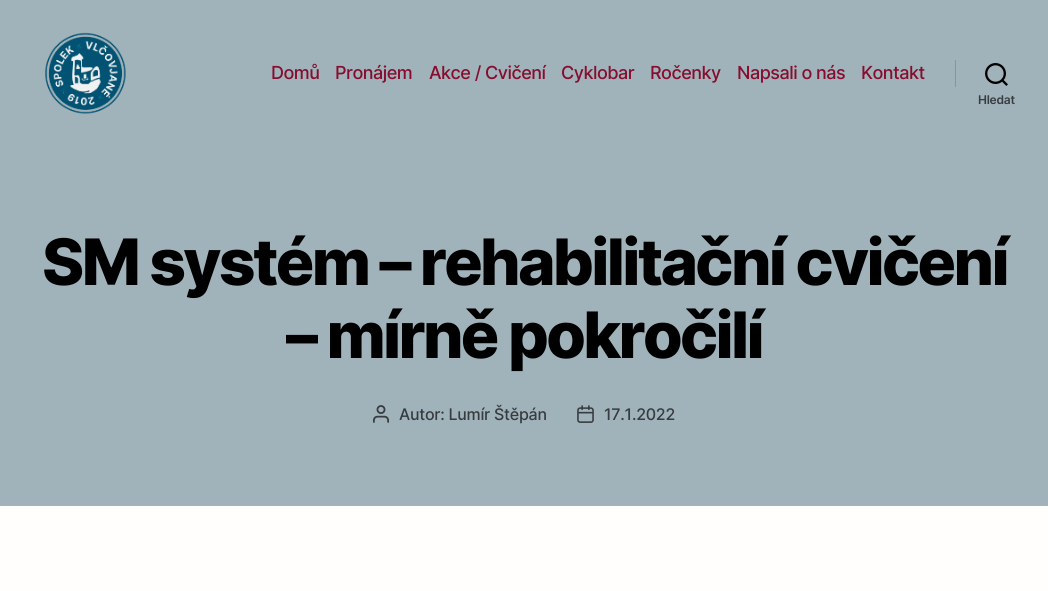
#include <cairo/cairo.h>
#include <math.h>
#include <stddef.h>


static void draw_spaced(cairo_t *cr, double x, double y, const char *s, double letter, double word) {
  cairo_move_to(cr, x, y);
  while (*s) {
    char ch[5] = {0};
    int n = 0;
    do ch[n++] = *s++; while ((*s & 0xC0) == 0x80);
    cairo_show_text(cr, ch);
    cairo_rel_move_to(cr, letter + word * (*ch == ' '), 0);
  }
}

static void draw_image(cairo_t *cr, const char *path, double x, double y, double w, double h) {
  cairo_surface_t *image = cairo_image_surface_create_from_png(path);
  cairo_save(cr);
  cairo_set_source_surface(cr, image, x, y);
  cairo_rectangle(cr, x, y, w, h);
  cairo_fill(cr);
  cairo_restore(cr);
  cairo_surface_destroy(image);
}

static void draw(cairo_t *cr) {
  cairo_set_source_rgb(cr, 1, 254 / 255.0, 252 / 255.0);
  cairo_paint(cr);
  cairo_set_source_rgb(cr, 161 / 255.0, 179 / 255.0, 186 / 255.0);
  cairo_rectangle(cr, 0, 0, 1048, 506);
  cairo_fill(cr);
  draw_image(cr, "images/1.png", 45, 32, 81, 82);
  cairo_set_source_rgb(cr, 128 / 255.0, 153 / 255.0, 161 / 255.0);
  cairo_rectangle(cr, 955, 60, 1, 27);
  cairo_fill(cr);
  draw_image(cr, "images/2.png", 985, 63, 23, 23);
  draw_image(cr, "images/3.png", 373, 405, 16, 18);
  draw_image(cr, "images/4.png", 577, 405, 17, 18);
  cairo_select_font_face(cr, "Inter Medium", CAIRO_FONT_SLANT_NORMAL, CAIRO_FONT_WEIGHT_NORMAL);
  cairo_set_font_size(cr, 18);
  cairo_set_source_rgb(cr, 135 / 255.0, 12 / 255.0, 45 / 255.0);
  draw_spaced(cr, 271, 79, "Domů", -0.5, 0);
  draw_spaced(cr, 335, 79, "Pronájem", -0.5, 0);
  draw_spaced(cr, 429, 79, "Akce / Cvičení", -0.5, 0);
  draw_spaced(cr, 561, 79, "Cyklobar", -0.5, 0);
  draw_spaced(cr, 650, 79, "Ročenky", -0.5, 0);
  draw_spaced(cr, 737, 79, "Napsali o nás", -0.5, 0);
  draw_spaced(cr, 861, 79, "Kontakt", -0.5, 0);
  cairo_select_font_face(cr, "Inter SemiBold", CAIRO_FONT_SLANT_NORMAL, CAIRO_FONT_WEIGHT_NORMAL);
  cairo_set_font_size(cr, 12);
  cairo_set_source_rgb(cr, 54 / 255.0, 60 / 255.0, 63 / 255.0);
  draw_spaced(cr, 978, 104, "Hledat", -0.25, 0);
  cairo_select_font_face(cr, "Inter ExtraBold", CAIRO_FONT_SLANT_NORMAL, CAIRO_FONT_WEIGHT_NORMAL);
  cairo_set_font_size(cr, 64);
  cairo_set_source_rgb(cr, 0, 0, 0);
  draw_spaced(cr, 42, 285, "SM systém – rehabilitační cvičení", -2.65, 0);
  draw_spaced(cr, 286, 358, "– mírně pokročilí", -2.65, 0);
  cairo_select_font_face(cr, "Inter Medium", CAIRO_FONT_SLANT_NORMAL, CAIRO_FONT_WEIGHT_NORMAL);
  cairo_set_font_size(cr, 16);
  cairo_set_source_rgb(cr, 54 / 255.0, 60 / 255.0, 63 / 255.0);
  draw_spaced(cr, 399, 420, "Autor: Lumír Štěpán", -0.25, 0);
  draw_spaced(cr, 604, 420, "17.1.2022", -0.25, 0);
}

int main(void) {
  cairo_surface_t *surface = cairo_image_surface_create(CAIRO_FORMAT_RGB24, 1048, 591);
  cairo_t *cr = cairo_create(surface);
  cairo_font_options_t *options = cairo_font_options_create();
  cairo_font_options_set_hint_metrics(options, CAIRO_HINT_METRICS_OFF);
  cairo_font_options_set_hint_style(options, CAIRO_HINT_STYLE_NONE);
  cairo_set_font_options(cr, options);
  cairo_set_miter_limit(cr, 4);
  draw(cr);
  cairo_surface_write_to_png(surface, "out.png");
  cairo_font_options_destroy(options);
  cairo_destroy(cr);
  cairo_surface_destroy(surface);
  return 0;
}
